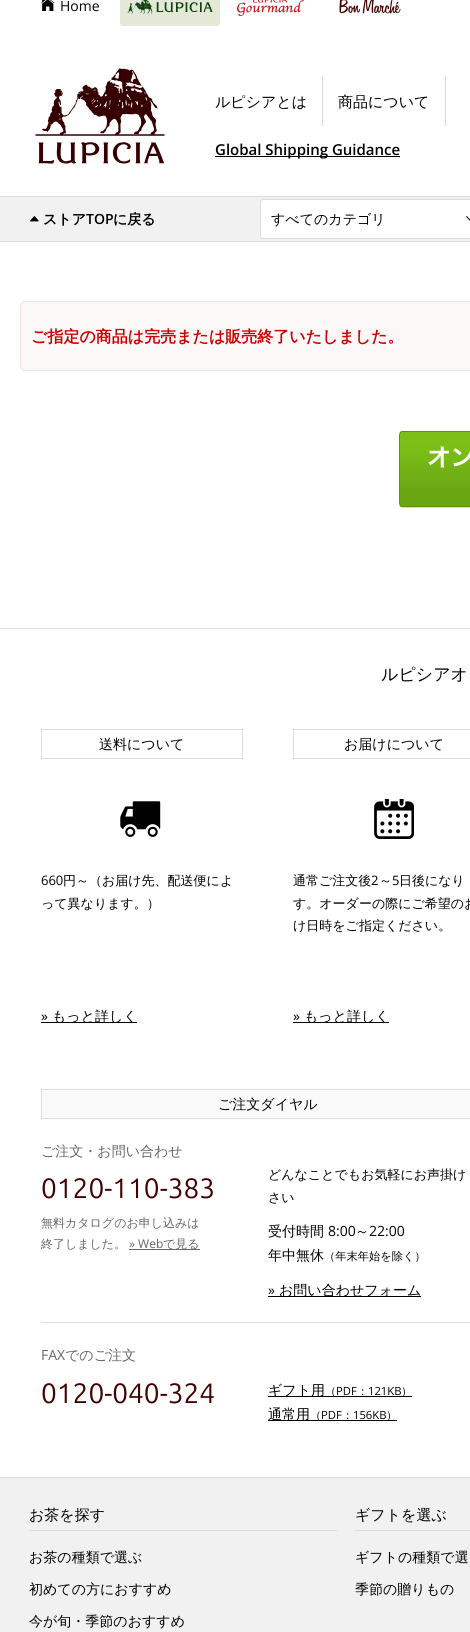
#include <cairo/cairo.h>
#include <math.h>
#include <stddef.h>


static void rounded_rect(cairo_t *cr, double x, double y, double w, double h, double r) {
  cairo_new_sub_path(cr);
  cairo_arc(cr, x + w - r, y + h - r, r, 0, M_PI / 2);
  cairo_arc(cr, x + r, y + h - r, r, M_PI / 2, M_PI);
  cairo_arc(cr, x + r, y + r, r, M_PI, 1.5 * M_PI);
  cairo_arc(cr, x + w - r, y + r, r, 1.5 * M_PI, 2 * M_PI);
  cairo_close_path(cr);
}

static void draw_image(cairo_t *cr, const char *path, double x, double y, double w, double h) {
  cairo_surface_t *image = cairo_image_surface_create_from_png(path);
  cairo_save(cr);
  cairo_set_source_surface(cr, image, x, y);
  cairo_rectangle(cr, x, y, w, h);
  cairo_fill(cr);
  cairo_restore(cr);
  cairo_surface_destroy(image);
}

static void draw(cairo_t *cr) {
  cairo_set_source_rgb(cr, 1, 1, 1);
  cairo_paint(cr);
  draw_image(cr, "images/1.png", 41, 0, 14, 11);
  cairo_set_source_rgb(cr, 227 / 255.0, 233 / 255.0, 214 / 255.0);
  cairo_new_path(cr);
  cairo_move_to(cr, 120, -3);
  cairo_line_to(cr, 220, -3);
  cairo_line_to(cr, 220, 23);
  cairo_curve_to(cr, 220, 24.5, 218.5, 26, 217, 26);
  cairo_line_to(cr, 123, 26);
  cairo_curve_to(cr, 121.5, 26, 120, 24.5, 120, 23);
  cairo_close_path(cr);
  cairo_fill(cr);
  draw_image(cr, "images/2.png", 127, 0, 86, 14);
  draw_image(cr, "images/3.png", 237, 0, 67, 16);
  draw_image(cr, "images/4.png", 339, 0, 62, 14);
  draw_image(cr, "images/5.png", 35, 68, 130, 96);
  cairo_set_source_rgb(cr, 221 / 255.0, 221 / 255.0, 221 / 255.0);
  cairo_rectangle(cr, 322, 76, 1, 50);
  cairo_fill(cr);
  cairo_rectangle(cr, 445, 76, 1, 50);
  cairo_fill(cr);
  cairo_set_source_rgb(cr, 0, 0, 0);
  cairo_rectangle(cr, 215, 156, 185, 1);
  cairo_fill(cr);
  cairo_set_source_rgb(cr, 241 / 255.0, 241 / 255.0, 241 / 255.0);
  cairo_rectangle(cr, 0, 197, 470, 44);
  cairo_fill(cr);
  cairo_set_source_rgb(cr, 221 / 255.0, 221 / 255.0, 221 / 255.0);
  cairo_rectangle(cr, 0, 196, 470, 1);
  cairo_fill(cr);
  cairo_rectangle(cr, 0, 241, 470, 1);
  cairo_fill(cr);
  draw_image(cr, "images/6.png", 30, 216, 9, 6);
  cairo_set_source_rgb(cr, 1, 1, 1);
  rounded_rect(cr, 260.5, 199.5, 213, 39, 2.5);
  cairo_fill_preserve(cr);
  cairo_set_source_rgb(cr, 221 / 255.0, 221 / 255.0, 221 / 255.0);
  cairo_set_line_width(cr, 1);
  cairo_stroke(cr);
  draw_image(cr, "images/7.png", 466, 216, 4, 5);
  cairo_set_source_rgb(cr, 252 / 255.0, 248 / 255.0, 248 / 255.0);
  rounded_rect(cr, 20.5, 301.5, 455, 69, 4.5);
  cairo_fill_preserve(cr);
  cairo_set_source_rgb(cr, 242 / 255.0, 228 / 255.0, 226 / 255.0);
  cairo_stroke(cr);
  draw_image(cr, "images/8.png", 399, 431, 71, 77);
  cairo_set_source_rgb(cr, 221 / 255.0, 221 / 255.0, 221 / 255.0);
  cairo_rectangle(cr, 0, 628, 470, 1);
  cairo_fill(cr);
  cairo_rectangle(cr, 41.5, 729.5, 201, 29);
  cairo_stroke(cr);
  draw_image(cr, "images/9.png", 120, 801, 41, 36);
  cairo_set_source_rgb(cr, 0, 0, 0);
  cairo_rectangle(cr, 41, 1022, 96, 1);
  cairo_fill(cr);
  cairo_rectangle(cr, 293.5, 729.5, 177, 29);
  cairo_set_source_rgb(cr, 221 / 255.0, 221 / 255.0, 221 / 255.0);
  cairo_stroke(cr);
  draw_image(cr, "images/10.png", 374, 799, 40, 40);
  cairo_set_source_rgb(cr, 0, 0, 0);
  cairo_rectangle(cr, 293, 1022, 96, 1);
  cairo_fill(cr);
  cairo_set_source_rgb(cr, 250 / 255.0, 250 / 255.0, 250 / 255.0);
  cairo_rectangle(cr, 41.5, 1089.5, 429, 29);
  cairo_fill_preserve(cr);
  cairo_set_source_rgb(cr, 221 / 255.0, 221 / 255.0, 221 / 255.0);
  cairo_stroke(cr);
  cairo_set_source_rgb(cr, 102 / 255.0, 102 / 255.0, 102 / 255.0);
  cairo_rectangle(cr, 129, 1249, 71, 1);
  cairo_fill(cr);
  cairo_set_source_rgb(cr, 0, 0, 0);
  cairo_rectangle(cr, 268, 1296, 153, 1);
  cairo_fill(cr);
  cairo_set_source_rgb(cr, 221 / 255.0, 221 / 255.0, 221 / 255.0);
  cairo_rectangle(cr, 41, 1322, 429, 1);
  cairo_fill(cr);
  cairo_set_source_rgb(cr, 0, 0, 0);
  cairo_rectangle(cr, 268, 1396, 144, 1);
  cairo_fill(cr);
  cairo_rectangle(cr, 268, 1420, 129, 1);
  cairo_fill(cr);
  cairo_set_source_rgb(cr, 241 / 255.0, 241 / 255.0, 241 / 255.0);
  cairo_rectangle(cr, 0, 1478, 470, 154);
  cairo_fill(cr);
  cairo_set_source_rgb(cr, 221 / 255.0, 221 / 255.0, 221 / 255.0);
  cairo_rectangle(cr, 0, 1477, 470, 1);
  cairo_fill(cr);
  cairo_rectangle(cr, 29, 1530, 308, 1);
  cairo_fill(cr);
  cairo_rectangle(cr, 355, 1530, 115, 1);
  cairo_fill(cr);
  cairo_select_font_face(cr, "Open Sans", CAIRO_FONT_SLANT_NORMAL, CAIRO_FONT_WEIGHT_NORMAL);
  cairo_set_font_size(cr, 14);
  cairo_set_source_rgb(cr, 0, 0, 0);
  cairo_move_to(cr, 60, 11);
  cairo_show_text(cr, "Home");
  cairo_select_font_face(cr, "WenQuanYi Zen Hei Medium", CAIRO_FONT_SLANT_NORMAL, CAIRO_FONT_WEIGHT_NORMAL);
  cairo_set_font_size(cr, 15);
  cairo_move_to(cr, 215, 107);
  cairo_show_text(cr, "ルピシアとは");
  cairo_move_to(cr, 338, 107);
  cairo_show_text(cr, "商品について");
  cairo_select_font_face(cr, "Open Sans SemiBold", CAIRO_FONT_SLANT_NORMAL, CAIRO_FONT_WEIGHT_NORMAL);
  cairo_move_to(cr, 215, 155);
  cairo_show_text(cr, "Global Shipping Guidance");
  cairo_select_font_face(cr, "WenQuanYi Zen Hei", CAIRO_FONT_SLANT_NORMAL, CAIRO_FONT_WEIGHT_BOLD);
  cairo_set_font_size(cr, 14);
  cairo_move_to(cr, 43, 224);
  cairo_show_text(cr, "ストア");
  cairo_select_font_face(cr, "Open Sans SemiBold", CAIRO_FONT_SLANT_NORMAL, CAIRO_FONT_WEIGHT_NORMAL);
  cairo_move_to(cr, 86, 224);
  cairo_show_text(cr, "TOP");
  cairo_select_font_face(cr, "WenQuanYi Zen Hei", CAIRO_FONT_SLANT_NORMAL, CAIRO_FONT_WEIGHT_BOLD);
  cairo_move_to(cr, 113, 224);
  cairo_show_text(cr, "に戻る");
  cairo_select_font_face(cr, "WenQuanYi Zen Hei Medium", CAIRO_FONT_SLANT_NORMAL, CAIRO_FONT_WEIGHT_NORMAL);
  cairo_move_to(cr, 271, 224);
  cairo_show_text(cr, "すべてのカテゴリ");
  cairo_select_font_face(cr, "WenQuanYi Zen Hei", CAIRO_FONT_SLANT_NORMAL, CAIRO_FONT_WEIGHT_BOLD);
  cairo_set_font_size(cr, 16);
  cairo_set_source_rgb(cr, 204 / 255.0, 0, 0);
  cairo_move_to(cr, 31, 342);
  cairo_show_text(cr, "ご指定の商品は完売または販売終了いたしました。");
  cairo_select_font_face(cr, "WenQuanYi Zen Hei Medium", CAIRO_FONT_SLANT_NORMAL, CAIRO_FONT_WEIGHT_NORMAL);
  cairo_set_font_size(cr, 17);
  cairo_set_source_rgb(cr, 0, 0, 0);
  cairo_move_to(cr, 381, 680);
  cairo_show_text(cr, "ルピシアオ");
  cairo_set_font_size(cr, 14);
  cairo_move_to(cr, 99, 749);
  cairo_show_text(cr, "送料について");
  cairo_select_font_face(cr, "Open Sans", CAIRO_FONT_SLANT_NORMAL, CAIRO_FONT_WEIGHT_NORMAL);
  cairo_set_font_size(cr, 13);
  cairo_move_to(cr, 41, 885);
  cairo_show_text(cr, "660");
  cairo_select_font_face(cr, "WenQuanYi Zen Hei Medium", CAIRO_FONT_SLANT_NORMAL, CAIRO_FONT_WEIGHT_NORMAL);
  cairo_move_to(cr, 63, 885);
  cairo_show_text(cr, "円～（お届け先、配送便によ");
  cairo_move_to(cr, 41, 908);
  cairo_show_text(cr, "って異なります。）");
  cairo_select_font_face(cr, "Open Sans", CAIRO_FONT_SLANT_NORMAL, CAIRO_FONT_WEIGHT_NORMAL);
  cairo_set_font_size(cr, 14);
  cairo_move_to(cr, 41, 1021);
  cairo_show_text(cr, "»");
  cairo_select_font_face(cr, "WenQuanYi Zen Hei Medium", CAIRO_FONT_SLANT_NORMAL, CAIRO_FONT_WEIGHT_NORMAL);
  cairo_move_to(cr, 52, 1021);
  cairo_show_text(cr, "もっと詳しく");
  cairo_move_to(cr, 344, 749);
  cairo_show_text(cr, "お届けについて");
  cairo_set_font_size(cr, 13);
  cairo_move_to(cr, 293, 885);
  cairo_show_text(cr, "通常ご注文後");
  cairo_select_font_face(cr, "Open Sans", CAIRO_FONT_SLANT_NORMAL, CAIRO_FONT_WEIGHT_NORMAL);
  cairo_move_to(cr, 371, 885);
  cairo_show_text(cr, "2");
  cairo_select_font_face(cr, "WenQuanYi Zen Hei Medium", CAIRO_FONT_SLANT_NORMAL, CAIRO_FONT_WEIGHT_NORMAL);
  cairo_move_to(cr, 379, 885);
  cairo_show_text(cr, "～");
  cairo_select_font_face(cr, "Open Sans", CAIRO_FONT_SLANT_NORMAL, CAIRO_FONT_WEIGHT_NORMAL);
  cairo_move_to(cr, 392, 885);
  cairo_show_text(cr, "5");
  cairo_select_font_face(cr, "WenQuanYi Zen Hei Medium", CAIRO_FONT_SLANT_NORMAL, CAIRO_FONT_WEIGHT_NORMAL);
  cairo_move_to(cr, 399, 885);
  cairo_show_text(cr, "日後になり");
  cairo_move_to(cr, 293, 908);
  cairo_show_text(cr, "す。オーダーの際にご希望のお");
  cairo_move_to(cr, 293, 930);
  cairo_show_text(cr, "け日時をご指定ください。");
  cairo_select_font_face(cr, "Open Sans", CAIRO_FONT_SLANT_NORMAL, CAIRO_FONT_WEIGHT_NORMAL);
  cairo_set_font_size(cr, 14);
  cairo_move_to(cr, 293, 1021);
  cairo_show_text(cr, "»");
  cairo_select_font_face(cr, "WenQuanYi Zen Hei Medium", CAIRO_FONT_SLANT_NORMAL, CAIRO_FONT_WEIGHT_NORMAL);
  cairo_move_to(cr, 304, 1021);
  cairo_show_text(cr, "もっと詳しく");
  cairo_move_to(cr, 218, 1109);
  cairo_show_text(cr, "ご注文ダイヤル");
  cairo_set_source_rgb(cr, 102 / 255.0, 102 / 255.0, 102 / 255.0);
  cairo_move_to(cr, 41, 1156);
  cairo_show_text(cr, "ご注文・お問い合わせ");
  cairo_select_font_face(cr, "Ubuntu", CAIRO_FONT_SLANT_NORMAL, CAIRO_FONT_WEIGHT_NORMAL);
  cairo_set_font_size(cr, 28);
  cairo_set_source_rgb(cr, 68 / 255.0, 0, 0);
  cairo_move_to(cr, 41, 1198);
  cairo_show_text(cr, "0120-110-383");
  cairo_select_font_face(cr, "WenQuanYi Zen Hei Medium", CAIRO_FONT_SLANT_NORMAL, CAIRO_FONT_WEIGHT_NORMAL);
  cairo_set_font_size(cr, 12);
  cairo_set_source_rgb(cr, 102 / 255.0, 102 / 255.0, 102 / 255.0);
  cairo_move_to(cr, 41, 1227);
  cairo_show_text(cr, "無料カタログのお申し込みは");
  cairo_move_to(cr, 41, 1248);
  cairo_show_text(cr, "終了しました。");
  cairo_select_font_face(cr, "Open Sans", CAIRO_FONT_SLANT_NORMAL, CAIRO_FONT_WEIGHT_NORMAL);
  cairo_move_to(cr, 129, 1248);
  cairo_show_text(cr, "» Web");
  cairo_select_font_face(cr, "WenQuanYi Zen Hei Medium", CAIRO_FONT_SLANT_NORMAL, CAIRO_FONT_WEIGHT_NORMAL);
  cairo_move_to(cr, 163, 1248);
  cairo_show_text(cr, "で見る");
  cairo_set_font_size(cr, 13);
  cairo_set_source_rgb(cr, 0, 0, 0);
  cairo_move_to(cr, 268, 1179);
  cairo_show_text(cr, "どんなことでもお気軽にお声掛け");
  cairo_move_to(cr, 268, 1202);
  cairo_show_text(cr, "さい");
  cairo_set_font_size(cr, 14);
  cairo_move_to(cr, 268, 1236);
  cairo_show_text(cr, "受付時間");
  cairo_select_font_face(cr, "Open Sans", CAIRO_FONT_SLANT_NORMAL, CAIRO_FONT_WEIGHT_NORMAL);
  cairo_move_to(cr, 328, 1236);
  cairo_show_text(cr, "8:00");
  cairo_select_font_face(cr, "WenQuanYi Zen Hei Medium", CAIRO_FONT_SLANT_NORMAL, CAIRO_FONT_WEIGHT_NORMAL);
  cairo_move_to(cr, 355, 1236);
  cairo_show_text(cr, "～");
  cairo_select_font_face(cr, "Open Sans", CAIRO_FONT_SLANT_NORMAL, CAIRO_FONT_WEIGHT_NORMAL);
  cairo_move_to(cr, 369, 1236);
  cairo_show_text(cr, "22:00");
  cairo_select_font_face(cr, "WenQuanYi Zen Hei Medium", CAIRO_FONT_SLANT_NORMAL, CAIRO_FONT_WEIGHT_NORMAL);
  cairo_move_to(cr, 268, 1260);
  cairo_show_text(cr, "年中無休");
  cairo_set_font_size(cr, 11.25);
  cairo_move_to(cr, 324, 1260);
  cairo_show_text(cr, "（年末年始を除く）");
  cairo_select_font_face(cr, "Open Sans", CAIRO_FONT_SLANT_NORMAL, CAIRO_FONT_WEIGHT_NORMAL);
  cairo_set_font_size(cr, 14);
  cairo_move_to(cr, 268, 1295);
  cairo_show_text(cr, "»");
  cairo_select_font_face(cr, "WenQuanYi Zen Hei Medium", CAIRO_FONT_SLANT_NORMAL, CAIRO_FONT_WEIGHT_NORMAL);
  cairo_move_to(cr, 279, 1295);
  cairo_show_text(cr, "お問い合わせフォーム");
  cairo_select_font_face(cr, "Open Sans", CAIRO_FONT_SLANT_NORMAL, CAIRO_FONT_WEIGHT_NORMAL);
  cairo_set_source_rgb(cr, 102 / 255.0, 102 / 255.0, 102 / 255.0);
  cairo_move_to(cr, 41, 1360);
  cairo_show_text(cr, "FAX");
  cairo_select_font_face(cr, "WenQuanYi Zen Hei Medium", CAIRO_FONT_SLANT_NORMAL, CAIRO_FONT_WEIGHT_NORMAL);
  cairo_move_to(cr, 65, 1360);
  cairo_show_text(cr, "でのご注文");
  cairo_select_font_face(cr, "Ubuntu", CAIRO_FONT_SLANT_NORMAL, CAIRO_FONT_WEIGHT_NORMAL);
  cairo_set_font_size(cr, 28);
  cairo_set_source_rgb(cr, 68 / 255.0, 0, 0);
  cairo_move_to(cr, 41, 1403);
  cairo_show_text(cr, "0120-040-324");
  cairo_select_font_face(cr, "WenQuanYi Zen Hei Medium", CAIRO_FONT_SLANT_NORMAL, CAIRO_FONT_WEIGHT_NORMAL);
  cairo_set_font_size(cr, 14);
  cairo_set_source_rgb(cr, 0, 0, 0);
  cairo_move_to(cr, 268, 1395);
  cairo_show_text(cr, "ギフト用");
  cairo_set_font_size(cr, 11.25);
  cairo_move_to(cr, 325, 1395);
  cairo_show_text(cr, "（");
  cairo_select_font_face(cr, "Open Sans", CAIRO_FONT_SLANT_NORMAL, CAIRO_FONT_WEIGHT_NORMAL);
  cairo_move_to(cr, 336, 1395);
  cairo_show_text(cr, "PDF");
  cairo_select_font_face(cr, "WenQuanYi Zen Hei Medium", CAIRO_FONT_SLANT_NORMAL, CAIRO_FONT_WEIGHT_NORMAL);
  cairo_move_to(cr, 357, 1395);
  cairo_show_text(cr, "：");
  cairo_select_font_face(cr, "Open Sans", CAIRO_FONT_SLANT_NORMAL, CAIRO_FONT_WEIGHT_NORMAL);
  cairo_move_to(cr, 368, 1395);
  cairo_show_text(cr, "121KB");
  cairo_select_font_face(cr, "WenQuanYi Zen Hei Medium", CAIRO_FONT_SLANT_NORMAL, CAIRO_FONT_WEIGHT_NORMAL);
  cairo_move_to(cr, 401, 1395);
  cairo_show_text(cr, "）");
  cairo_set_font_size(cr, 14);
  cairo_move_to(cr, 268, 1419);
  cairo_show_text(cr, "通常用");
  cairo_set_font_size(cr, 11.25);
  cairo_move_to(cr, 310, 1419);
  cairo_show_text(cr, "（");
  cairo_select_font_face(cr, "Open Sans", CAIRO_FONT_SLANT_NORMAL, CAIRO_FONT_WEIGHT_NORMAL);
  cairo_move_to(cr, 321, 1419);
  cairo_show_text(cr, "PDF");
  cairo_select_font_face(cr, "WenQuanYi Zen Hei Medium", CAIRO_FONT_SLANT_NORMAL, CAIRO_FONT_WEIGHT_NORMAL);
  cairo_move_to(cr, 342, 1419);
  cairo_show_text(cr, "：");
  cairo_select_font_face(cr, "Open Sans", CAIRO_FONT_SLANT_NORMAL, CAIRO_FONT_WEIGHT_NORMAL);
  cairo_move_to(cr, 353, 1419);
  cairo_show_text(cr, "156KB");
  cairo_select_font_face(cr, "WenQuanYi Zen Hei Medium", CAIRO_FONT_SLANT_NORMAL, CAIRO_FONT_WEIGHT_NORMAL);
  cairo_move_to(cr, 386, 1419);
  cairo_show_text(cr, "）");
  cairo_set_font_size(cr, 15);
  cairo_move_to(cr, 29, 1520);
  cairo_show_text(cr, "お茶を探す");
  cairo_set_font_size(cr, 14);
  cairo_move_to(cr, 29, 1562);
  cairo_show_text(cr, "お茶の種類で選ぶ");
  cairo_move_to(cr, 29, 1594);
  cairo_show_text(cr, "初めての方におすすめ");
  cairo_move_to(cr, 29, 1626);
  cairo_show_text(cr, "今が旬・季節のおすすめ");
  cairo_set_font_size(cr, 15);
  cairo_move_to(cr, 355, 1520);
  cairo_show_text(cr, "ギフトを選ぶ");
  cairo_set_font_size(cr, 14);
  cairo_move_to(cr, 355, 1562);
  cairo_show_text(cr, "ギフトの種類で選");
  cairo_move_to(cr, 355, 1594);
  cairo_show_text(cr, "季節の贈りもの");
}

int main(void) {
  cairo_surface_t *surface = cairo_image_surface_create(CAIRO_FORMAT_RGB24, 470, 1632);
  cairo_t *cr = cairo_create(surface);
  cairo_font_options_t *options = cairo_font_options_create();
  cairo_font_options_set_hint_metrics(options, CAIRO_HINT_METRICS_OFF);
  cairo_font_options_set_hint_style(options, CAIRO_HINT_STYLE_NONE);
  cairo_set_font_options(cr, options);
  cairo_set_miter_limit(cr, 4);
  draw(cr);
  cairo_surface_write_to_png(surface, "out.png");
  cairo_font_options_destroy(options);
  cairo_destroy(cr);
  cairo_surface_destroy(surface);
  return 0;
}
